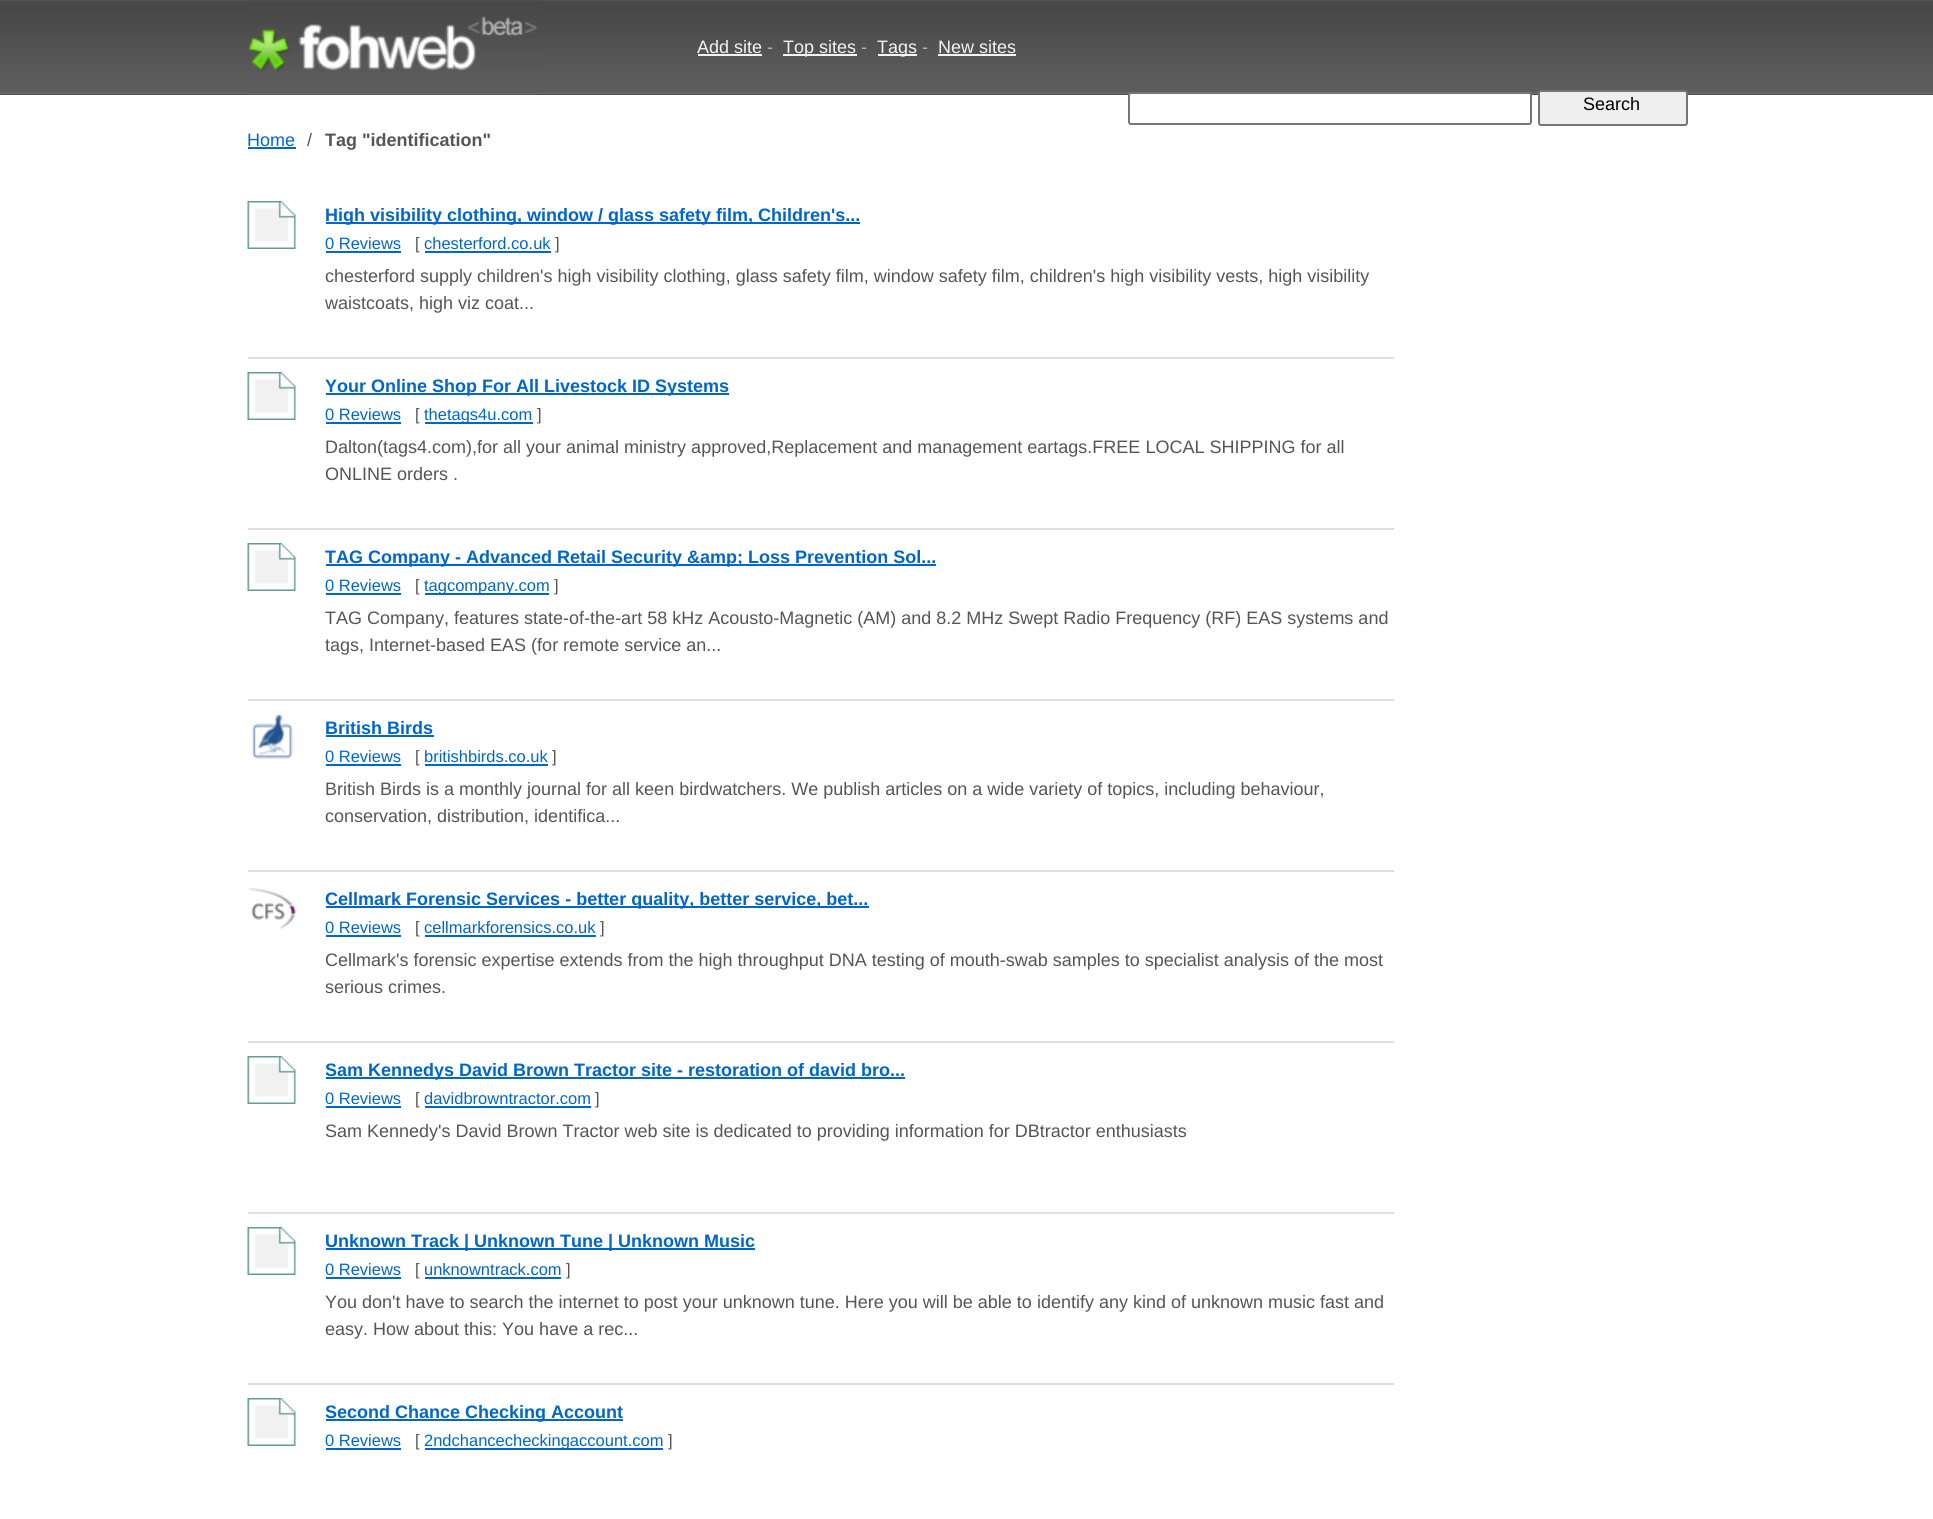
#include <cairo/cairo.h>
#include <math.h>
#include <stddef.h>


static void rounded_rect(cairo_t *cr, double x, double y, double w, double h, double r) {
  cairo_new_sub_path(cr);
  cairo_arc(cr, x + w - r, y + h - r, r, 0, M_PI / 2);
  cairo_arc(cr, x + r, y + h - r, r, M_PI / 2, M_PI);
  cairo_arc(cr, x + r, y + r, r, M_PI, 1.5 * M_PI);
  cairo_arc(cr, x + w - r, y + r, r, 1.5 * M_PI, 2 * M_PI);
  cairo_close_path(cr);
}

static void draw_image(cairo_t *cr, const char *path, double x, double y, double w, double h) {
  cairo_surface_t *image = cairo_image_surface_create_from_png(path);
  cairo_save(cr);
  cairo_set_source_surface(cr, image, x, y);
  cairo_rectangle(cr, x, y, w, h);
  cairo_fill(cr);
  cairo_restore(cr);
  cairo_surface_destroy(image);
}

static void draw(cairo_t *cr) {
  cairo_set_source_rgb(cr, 1, 1, 1);
  cairo_paint(cr);
  cairo_set_source_rgb(cr, 68 / 255.0, 68 / 255.0, 68 / 255.0);
  cairo_rectangle(cr, 0, 94, 1933, 1);
  cairo_fill(cr);
  draw_image(cr, "images/1.png", 0, 0, 1933, 95);
  draw_image(cr, "images/2.png", 248, 0, 292, 95);
  cairo_set_source_rgb(cr, 243 / 255.0, 243 / 255.0, 243 / 255.0);
  cairo_rectangle(cr, 698, 54, 64, 2);
  cairo_fill(cr);
  cairo_rectangle(cr, 783, 54, 74, 2);
  cairo_fill(cr);
  cairo_rectangle(cr, 878, 54, 39, 2);
  cairo_fill(cr);
  cairo_rectangle(cr, 938, 54, 78, 2);
  cairo_fill(cr);
  cairo_set_source_rgb(cr, 1, 1, 1);
  rounded_rect(cr, 1129, 93, 402, 31, 2);
  cairo_fill_preserve(cr);
  cairo_set_source_rgb(cr, 118 / 255.0, 118 / 255.0, 118 / 255.0);
  cairo_stroke(cr);
  cairo_set_source_rgb(cr, 239 / 255.0, 239 / 255.0, 239 / 255.0);
  rounded_rect(cr, 1539, 91, 148, 34, 2);
  cairo_fill_preserve(cr);
  cairo_set_source_rgb(cr, 118 / 255.0, 118 / 255.0, 118 / 255.0);
  cairo_stroke(cr);
  cairo_set_source_rgb(cr, 0, 102 / 255.0, 204 / 255.0);
  cairo_rectangle(cr, 248, 147, 48, 2);
  cairo_fill(cr);
  cairo_set_source_rgb(cr, 222 / 255.0, 222 / 255.0, 222 / 255.0);
  cairo_rectangle(cr, 248, 357, 1146, 2);
  cairo_fill(cr);
  draw_image(cr, "images/3.png", 247, 201, 49, 48);
  cairo_set_source_rgb(cr, 0, 102 / 255.0, 204 / 255.0);
  cairo_rectangle(cr, 326, 222, 534, 2);
  cairo_fill(cr);
  cairo_rectangle(cr, 326, 251, 75, 2);
  cairo_fill(cr);
  cairo_rectangle(cr, 425, 251, 126, 2);
  cairo_fill(cr);
  cairo_set_source_rgb(cr, 222 / 255.0, 222 / 255.0, 222 / 255.0);
  cairo_rectangle(cr, 248, 528, 1146, 2);
  cairo_fill(cr);
  draw_image(cr, "images/3.png", 247, 372, 49, 48);
  cairo_set_source_rgb(cr, 0, 102 / 255.0, 204 / 255.0);
  cairo_rectangle(cr, 326, 393, 403, 2);
  cairo_fill(cr);
  cairo_rectangle(cr, 326, 422, 75, 2);
  cairo_fill(cr);
  cairo_rectangle(cr, 425, 422, 108, 2);
  cairo_fill(cr);
  cairo_set_source_rgb(cr, 222 / 255.0, 222 / 255.0, 222 / 255.0);
  cairo_rectangle(cr, 248, 699, 1146, 2);
  cairo_fill(cr);
  draw_image(cr, "images/3.png", 247, 543, 49, 48);
  cairo_set_source_rgb(cr, 0, 102 / 255.0, 204 / 255.0);
  cairo_rectangle(cr, 326, 564, 610, 2);
  cairo_fill(cr);
  cairo_rectangle(cr, 326, 593, 75, 2);
  cairo_fill(cr);
  cairo_rectangle(cr, 425, 593, 124, 2);
  cairo_fill(cr);
  cairo_set_source_rgb(cr, 222 / 255.0, 222 / 255.0, 222 / 255.0);
  cairo_rectangle(cr, 248, 870, 1146, 2);
  cairo_fill(cr);
  draw_image(cr, "images/4.png", 252, 714, 41, 45);
  cairo_set_source_rgb(cr, 0, 102 / 255.0, 204 / 255.0);
  cairo_rectangle(cr, 326, 735, 108, 2);
  cairo_fill(cr);
  cairo_rectangle(cr, 326, 764, 75, 2);
  cairo_fill(cr);
  cairo_rectangle(cr, 425, 764, 123, 2);
  cairo_fill(cr);
  cairo_set_source_rgb(cr, 222 / 255.0, 222 / 255.0, 222 / 255.0);
  cairo_rectangle(cr, 248, 1041, 1146, 2);
  cairo_fill(cr);
  draw_image(cr, "images/5.png", 248, 888, 48, 41);
  cairo_set_source_rgb(cr, 0, 102 / 255.0, 204 / 255.0);
  cairo_rectangle(cr, 326, 906, 543, 2);
  cairo_fill(cr);
  cairo_rectangle(cr, 326, 935, 75, 2);
  cairo_fill(cr);
  cairo_rectangle(cr, 425, 935, 171, 2);
  cairo_fill(cr);
  cairo_set_source_rgb(cr, 222 / 255.0, 222 / 255.0, 222 / 255.0);
  cairo_rectangle(cr, 248, 1212, 1146, 2);
  cairo_fill(cr);
  draw_image(cr, "images/3.png", 247, 1056, 49, 48);
  cairo_set_source_rgb(cr, 0, 102 / 255.0, 204 / 255.0);
  cairo_rectangle(cr, 326, 1077, 579, 2);
  cairo_fill(cr);
  cairo_rectangle(cr, 326, 1106, 75, 2);
  cairo_fill(cr);
  cairo_rectangle(cr, 425, 1106, 166, 2);
  cairo_fill(cr);
  cairo_set_source_rgb(cr, 222 / 255.0, 222 / 255.0, 222 / 255.0);
  cairo_rectangle(cr, 248, 1383, 1146, 2);
  cairo_fill(cr);
  draw_image(cr, "images/3.png", 247, 1227, 49, 48);
  cairo_set_source_rgb(cr, 0, 102 / 255.0, 204 / 255.0);
  cairo_rectangle(cr, 326, 1248, 429, 2);
  cairo_fill(cr);
  cairo_rectangle(cr, 326, 1277, 75, 2);
  cairo_fill(cr);
  cairo_rectangle(cr, 425, 1277, 136, 2);
  cairo_fill(cr);
  draw_image(cr, "images/3.png", 247, 1398, 49, 48);
  cairo_rectangle(cr, 326, 1419, 297, 2);
  cairo_fill(cr);
  cairo_rectangle(cr, 326, 1448, 75, 2);
  cairo_fill(cr);
  cairo_rectangle(cr, 425, 1448, 238, 2);
  cairo_fill(cr);
  cairo_select_font_face(cr, "Liberation Sans", CAIRO_FONT_SLANT_NORMAL, CAIRO_FONT_WEIGHT_NORMAL);
  cairo_set_font_size(cr, 18);
  cairo_set_source_rgb(cr, 243 / 255.0, 243 / 255.0, 243 / 255.0);
  cairo_move_to(cr, 697, 53);
  cairo_show_text(cr, "Add site");
  cairo_set_source_rgb(cr, 182 / 255.0, 182 / 255.0, 182 / 255.0);
  cairo_move_to(cr, 767, 53);
  cairo_show_text(cr, "-");
  cairo_set_source_rgb(cr, 243 / 255.0, 243 / 255.0, 243 / 255.0);
  cairo_move_to(cr, 783, 53);
  cairo_show_text(cr, "Top sites");
  cairo_set_source_rgb(cr, 182 / 255.0, 182 / 255.0, 182 / 255.0);
  cairo_move_to(cr, 861, 53);
  cairo_show_text(cr, "-");
  cairo_set_source_rgb(cr, 243 / 255.0, 243 / 255.0, 243 / 255.0);
  cairo_move_to(cr, 877, 53);
  cairo_show_text(cr, "Tags");
  cairo_set_source_rgb(cr, 182 / 255.0, 182 / 255.0, 182 / 255.0);
  cairo_move_to(cr, 922, 53);
  cairo_show_text(cr, "-");
  cairo_set_source_rgb(cr, 243 / 255.0, 243 / 255.0, 243 / 255.0);
  cairo_move_to(cr, 938, 53);
  cairo_show_text(cr, "New sites");
  cairo_set_source_rgb(cr, 0, 0, 0);
  cairo_move_to(cr, 1583, 110);
  cairo_show_text(cr, "Search");
  cairo_set_source_rgb(cr, 0, 102 / 255.0, 204 / 255.0);
  cairo_move_to(cr, 247, 146);
  cairo_show_text(cr, "Home");
  cairo_set_source_rgb(cr, 85 / 255.0, 85 / 255.0, 85 / 255.0);
  cairo_move_to(cr, 307, 146);
  cairo_show_text(cr, "/");
  cairo_select_font_face(cr, "Liberation Sans", CAIRO_FONT_SLANT_NORMAL, CAIRO_FONT_WEIGHT_BOLD);
  cairo_move_to(cr, 325, 146);
  cairo_show_text(cr, "Tag \"identification\"");
  cairo_set_source_rgb(cr, 0, 102 / 255.0, 204 / 255.0);
  cairo_move_to(cr, 325, 221);
  cairo_show_text(cr, "High visibility clothing, window / glass safety film, Children's...");
  cairo_select_font_face(cr, "Liberation Sans", CAIRO_FONT_SLANT_NORMAL, CAIRO_FONT_WEIGHT_NORMAL);
  cairo_set_font_size(cr, 16.5);
  cairo_move_to(cr, 325, 249);
  cairo_show_text(cr, "0 Reviews");
  cairo_set_source_rgb(cr, 85 / 255.0, 85 / 255.0, 85 / 255.0);
  cairo_move_to(cr, 415, 249);
  cairo_show_text(cr, "[");
  cairo_set_source_rgb(cr, 0, 102 / 255.0, 204 / 255.0);
  cairo_move_to(cr, 424, 249);
  cairo_show_text(cr, "chesterford.co.uk");
  cairo_set_source_rgb(cr, 85 / 255.0, 85 / 255.0, 85 / 255.0);
  cairo_move_to(cr, 555, 249);
  cairo_show_text(cr, "]");
  cairo_set_font_size(cr, 18);
  cairo_move_to(cr, 325, 282);
  cairo_show_text(cr, "chesterford supply children's high visibility clothing, glass safety film, window safety film, children's high visibility vests, high visibility");
  cairo_move_to(cr, 325, 309);
  cairo_show_text(cr, "waistcoats, high viz coat...");
  cairo_select_font_face(cr, "Liberation Sans", CAIRO_FONT_SLANT_NORMAL, CAIRO_FONT_WEIGHT_BOLD);
  cairo_set_source_rgb(cr, 0, 102 / 255.0, 204 / 255.0);
  cairo_move_to(cr, 325, 392);
  cairo_show_text(cr, "Your Online Shop For All Livestock ID Systems");
  cairo_select_font_face(cr, "Liberation Sans", CAIRO_FONT_SLANT_NORMAL, CAIRO_FONT_WEIGHT_NORMAL);
  cairo_set_font_size(cr, 16.5);
  cairo_move_to(cr, 325, 420);
  cairo_show_text(cr, "0 Reviews");
  cairo_set_source_rgb(cr, 85 / 255.0, 85 / 255.0, 85 / 255.0);
  cairo_move_to(cr, 415, 420);
  cairo_show_text(cr, "[");
  cairo_set_source_rgb(cr, 0, 102 / 255.0, 204 / 255.0);
  cairo_move_to(cr, 424, 420);
  cairo_show_text(cr, "thetags4u.com");
  cairo_set_source_rgb(cr, 85 / 255.0, 85 / 255.0, 85 / 255.0);
  cairo_move_to(cr, 537, 420);
  cairo_show_text(cr, "]");
  cairo_set_font_size(cr, 18);
  cairo_move_to(cr, 325, 453);
  cairo_show_text(cr, "Dalton(tags4.com),for all your animal ministry approved,Replacement and management eartags.FREE LOCAL SHIPPING for all");
  cairo_move_to(cr, 325, 480);
  cairo_show_text(cr, "ONLINE orders .");
  cairo_select_font_face(cr, "Liberation Sans", CAIRO_FONT_SLANT_NORMAL, CAIRO_FONT_WEIGHT_BOLD);
  cairo_set_source_rgb(cr, 0, 102 / 255.0, 204 / 255.0);
  cairo_move_to(cr, 325, 563);
  cairo_show_text(cr, "TAG Company - Advanced Retail Security &amp; Loss Prevention Sol...");
  cairo_select_font_face(cr, "Liberation Sans", CAIRO_FONT_SLANT_NORMAL, CAIRO_FONT_WEIGHT_NORMAL);
  cairo_set_font_size(cr, 16.5);
  cairo_move_to(cr, 325, 591);
  cairo_show_text(cr, "0 Reviews");
  cairo_set_source_rgb(cr, 85 / 255.0, 85 / 255.0, 85 / 255.0);
  cairo_move_to(cr, 415, 591);
  cairo_show_text(cr, "[");
  cairo_set_source_rgb(cr, 0, 102 / 255.0, 204 / 255.0);
  cairo_move_to(cr, 424, 591);
  cairo_show_text(cr, "tagcompany.com");
  cairo_set_source_rgb(cr, 85 / 255.0, 85 / 255.0, 85 / 255.0);
  cairo_move_to(cr, 554, 591);
  cairo_show_text(cr, "]");
  cairo_set_font_size(cr, 18);
  cairo_move_to(cr, 325, 624);
  cairo_show_text(cr, "TAG Company, features state-of-the-art 58 kHz Acousto-Magnetic (AM) and 8.2 MHz Swept Radio Frequency (RF) EAS systems and");
  cairo_move_to(cr, 325, 651);
  cairo_show_text(cr, "tags, Internet-based EAS (for remote service an...");
  cairo_select_font_face(cr, "Liberation Sans", CAIRO_FONT_SLANT_NORMAL, CAIRO_FONT_WEIGHT_BOLD);
  cairo_set_source_rgb(cr, 0, 102 / 255.0, 204 / 255.0);
  cairo_move_to(cr, 325, 734);
  cairo_show_text(cr, "British Birds");
  cairo_select_font_face(cr, "Liberation Sans", CAIRO_FONT_SLANT_NORMAL, CAIRO_FONT_WEIGHT_NORMAL);
  cairo_set_font_size(cr, 16.5);
  cairo_move_to(cr, 325, 762);
  cairo_show_text(cr, "0 Reviews");
  cairo_set_source_rgb(cr, 85 / 255.0, 85 / 255.0, 85 / 255.0);
  cairo_move_to(cr, 415, 762);
  cairo_show_text(cr, "[");
  cairo_set_source_rgb(cr, 0, 102 / 255.0, 204 / 255.0);
  cairo_move_to(cr, 424, 762);
  cairo_show_text(cr, "britishbirds.co.uk");
  cairo_set_source_rgb(cr, 85 / 255.0, 85 / 255.0, 85 / 255.0);
  cairo_move_to(cr, 552, 762);
  cairo_show_text(cr, "]");
  cairo_set_font_size(cr, 18);
  cairo_move_to(cr, 325, 795);
  cairo_show_text(cr, "British Birds is a monthly journal for all keen birdwatchers. We publish articles on a wide variety of topics, including behaviour,");
  cairo_move_to(cr, 325, 822);
  cairo_show_text(cr, "conservation, distribution, identifica...");
  cairo_select_font_face(cr, "Liberation Sans", CAIRO_FONT_SLANT_NORMAL, CAIRO_FONT_WEIGHT_BOLD);
  cairo_set_source_rgb(cr, 0, 102 / 255.0, 204 / 255.0);
  cairo_move_to(cr, 325, 905);
  cairo_show_text(cr, "Cellmark Forensic Services - better quality, better service, bet...");
  cairo_select_font_face(cr, "Liberation Sans", CAIRO_FONT_SLANT_NORMAL, CAIRO_FONT_WEIGHT_NORMAL);
  cairo_set_font_size(cr, 16.5);
  cairo_move_to(cr, 325, 933);
  cairo_show_text(cr, "0 Reviews");
  cairo_set_source_rgb(cr, 85 / 255.0, 85 / 255.0, 85 / 255.0);
  cairo_move_to(cr, 415, 933);
  cairo_show_text(cr, "[");
  cairo_set_source_rgb(cr, 0, 102 / 255.0, 204 / 255.0);
  cairo_move_to(cr, 424, 933);
  cairo_show_text(cr, "cellmarkforensics.co.uk");
  cairo_set_source_rgb(cr, 85 / 255.0, 85 / 255.0, 85 / 255.0);
  cairo_move_to(cr, 600, 933);
  cairo_show_text(cr, "]");
  cairo_set_font_size(cr, 18);
  cairo_move_to(cr, 325, 966);
  cairo_show_text(cr, "Cellmark's forensic expertise extends from the high throughput DNA testing of mouth-swab samples to specialist analysis of the most");
  cairo_move_to(cr, 325, 993);
  cairo_show_text(cr, "serious crimes.");
  cairo_select_font_face(cr, "Liberation Sans", CAIRO_FONT_SLANT_NORMAL, CAIRO_FONT_WEIGHT_BOLD);
  cairo_set_source_rgb(cr, 0, 102 / 255.0, 204 / 255.0);
  cairo_move_to(cr, 325, 1076);
  cairo_show_text(cr, "Sam Kennedys David Brown Tractor site - restoration of david bro...");
  cairo_select_font_face(cr, "Liberation Sans", CAIRO_FONT_SLANT_NORMAL, CAIRO_FONT_WEIGHT_NORMAL);
  cairo_set_font_size(cr, 16.5);
  cairo_move_to(cr, 325, 1104);
  cairo_show_text(cr, "0 Reviews");
  cairo_set_source_rgb(cr, 85 / 255.0, 85 / 255.0, 85 / 255.0);
  cairo_move_to(cr, 415, 1104);
  cairo_show_text(cr, "[");
  cairo_set_source_rgb(cr, 0, 102 / 255.0, 204 / 255.0);
  cairo_move_to(cr, 424, 1104);
  cairo_show_text(cr, "davidbrowntractor.com");
  cairo_set_source_rgb(cr, 85 / 255.0, 85 / 255.0, 85 / 255.0);
  cairo_move_to(cr, 595, 1104);
  cairo_show_text(cr, "]");
  cairo_set_font_size(cr, 18);
  cairo_move_to(cr, 325, 1137);
  cairo_show_text(cr, "Sam Kennedy's David Brown Tractor web site is dedicated to providing information for DBtractor enthusiasts");
  cairo_select_font_face(cr, "Liberation Sans", CAIRO_FONT_SLANT_NORMAL, CAIRO_FONT_WEIGHT_BOLD);
  cairo_set_source_rgb(cr, 0, 102 / 255.0, 204 / 255.0);
  cairo_move_to(cr, 325, 1247);
  cairo_show_text(cr, "Unknown Track | Unknown Tune | Unknown Music");
  cairo_select_font_face(cr, "Liberation Sans", CAIRO_FONT_SLANT_NORMAL, CAIRO_FONT_WEIGHT_NORMAL);
  cairo_set_font_size(cr, 16.5);
  cairo_move_to(cr, 325, 1275);
  cairo_show_text(cr, "0 Reviews");
  cairo_set_source_rgb(cr, 85 / 255.0, 85 / 255.0, 85 / 255.0);
  cairo_move_to(cr, 415, 1275);
  cairo_show_text(cr, "[");
  cairo_set_source_rgb(cr, 0, 102 / 255.0, 204 / 255.0);
  cairo_move_to(cr, 424, 1275);
  cairo_show_text(cr, "unknowntrack.com");
  cairo_set_source_rgb(cr, 85 / 255.0, 85 / 255.0, 85 / 255.0);
  cairo_move_to(cr, 566, 1275);
  cairo_show_text(cr, "]");
  cairo_set_font_size(cr, 18);
  cairo_move_to(cr, 325, 1308);
  cairo_show_text(cr, "You don't have to search the internet to post your unknown tune. Here you will be able to identify any kind of unknown music fast and");
  cairo_move_to(cr, 325, 1335);
  cairo_show_text(cr, "easy. How about this: You have a rec...");
  cairo_select_font_face(cr, "Liberation Sans", CAIRO_FONT_SLANT_NORMAL, CAIRO_FONT_WEIGHT_BOLD);
  cairo_set_source_rgb(cr, 0, 102 / 255.0, 204 / 255.0);
  cairo_move_to(cr, 325, 1418);
  cairo_show_text(cr, "Second Chance Checking Account");
  cairo_select_font_face(cr, "Liberation Sans", CAIRO_FONT_SLANT_NORMAL, CAIRO_FONT_WEIGHT_NORMAL);
  cairo_set_font_size(cr, 16.5);
  cairo_move_to(cr, 325, 1446);
  cairo_show_text(cr, "0 Reviews");
  cairo_set_source_rgb(cr, 85 / 255.0, 85 / 255.0, 85 / 255.0);
  cairo_move_to(cr, 415, 1446);
  cairo_show_text(cr, "[");
  cairo_set_source_rgb(cr, 0, 102 / 255.0, 204 / 255.0);
  cairo_move_to(cr, 424, 1446);
  cairo_show_text(cr, "2ndchancecheckingaccount.com");
  cairo_set_source_rgb(cr, 85 / 255.0, 85 / 255.0, 85 / 255.0);
  cairo_move_to(cr, 668, 1446);
  cairo_show_text(cr, "]");
}

int main(void) {
  cairo_surface_t *surface = cairo_image_surface_create(CAIRO_FORMAT_RGB24, 1933, 1519);
  cairo_t *cr = cairo_create(surface);
  cairo_font_options_t *options = cairo_font_options_create();
  cairo_font_options_set_hint_metrics(options, CAIRO_HINT_METRICS_OFF);
  cairo_font_options_set_hint_style(options, CAIRO_HINT_STYLE_NONE);
  cairo_set_font_options(cr, options);
  cairo_set_miter_limit(cr, 4);
  draw(cr);
  cairo_surface_write_to_png(surface, "out.png");
  cairo_font_options_destroy(options);
  cairo_destroy(cr);
  cairo_surface_destroy(surface);
  return 0;
}
